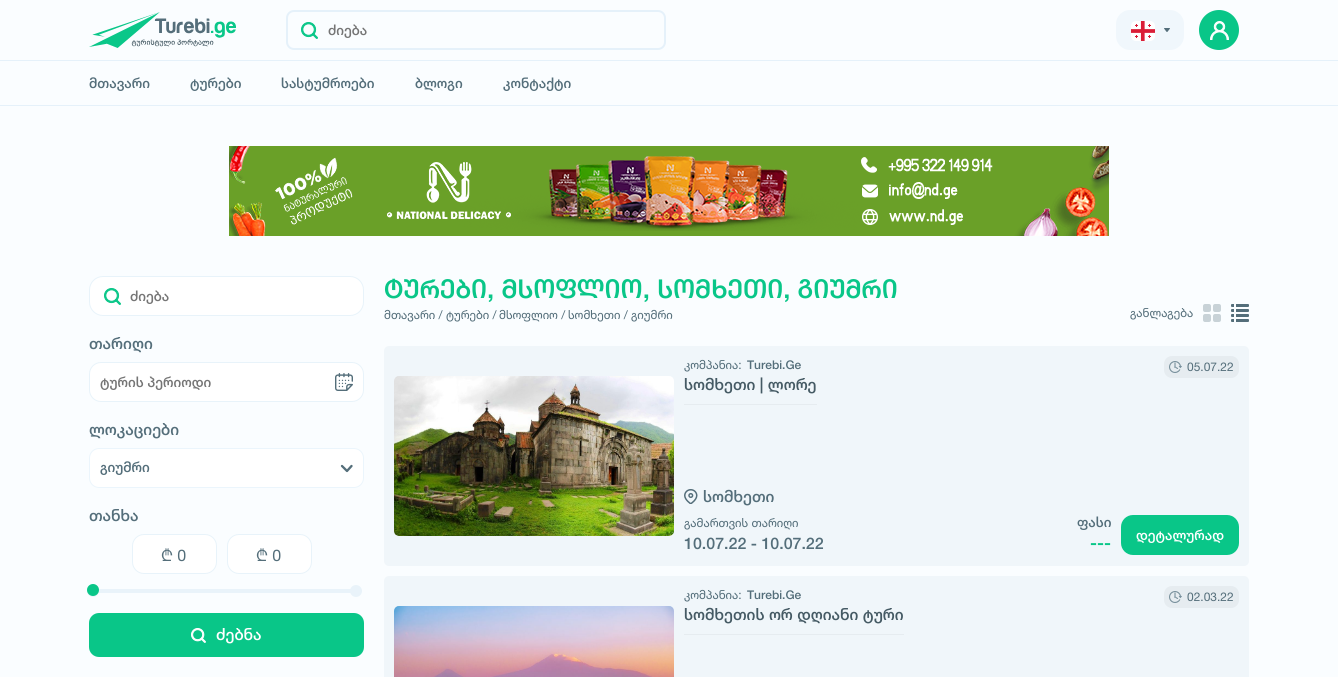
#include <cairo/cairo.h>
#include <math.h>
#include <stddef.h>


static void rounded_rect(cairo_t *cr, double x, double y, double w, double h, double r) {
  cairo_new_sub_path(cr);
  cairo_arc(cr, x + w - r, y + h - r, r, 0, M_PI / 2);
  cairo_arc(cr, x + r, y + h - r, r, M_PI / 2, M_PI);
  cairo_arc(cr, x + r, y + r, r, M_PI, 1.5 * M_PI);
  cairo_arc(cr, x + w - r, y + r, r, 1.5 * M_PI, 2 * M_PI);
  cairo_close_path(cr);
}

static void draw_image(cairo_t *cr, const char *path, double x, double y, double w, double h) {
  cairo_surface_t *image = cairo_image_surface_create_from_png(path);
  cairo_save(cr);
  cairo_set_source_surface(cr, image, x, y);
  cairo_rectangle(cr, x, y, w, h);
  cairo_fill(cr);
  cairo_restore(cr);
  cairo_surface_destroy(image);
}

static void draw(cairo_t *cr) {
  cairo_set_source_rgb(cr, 250 / 255.0, 253 / 255.0, 1);
  cairo_paint(cr);
  cairo_set_source_rgb(cr, 229 / 255.0, 241 / 255.0, 250 / 255.0);
  cairo_rectangle(cr, 0, 105, 1338, 1);
  cairo_fill(cr);
  cairo_rectangle(cr, 0, 60, 1338, 1);
  cairo_fill(cr);
  draw_image(cr, "images/1.png", 89, 12, 147, 36);
  rounded_rect(cr, 287, 11, 378, 38, 7);
  cairo_stroke(cr);
  draw_image(cr, "images/2.png", 301, 22, 17, 17);
  cairo_set_source_rgb(cr, 240 / 255.0, 247 / 255.0, 252 / 255.0);
  rounded_rect(cr, 1116, 10, 68, 40, 14);
  cairo_fill(cr);
  draw_image(cr, "images/3.png", 1131, 21, 24, 20);
  draw_image(cr, "images/4.png", 1164, 28, 6, 4);
  cairo_set_source_rgb(cr, 9 / 255.0, 198 / 255.0, 136 / 255.0);
  cairo_arc(cr, 1219, 30, 20, 0, 2 * M_PI);
  cairo_fill(cr);
  draw_image(cr, "images/5.png", 1210, 21, 19, 19);
  draw_image(cr, "images/6.png", 229, 146, 880, 90);
  cairo_set_source_rgb(cr, 1, 1, 1);
  rounded_rect(cr, 89.5, 276.5, 274, 39, 13.5);
  cairo_fill_preserve(cr);
  cairo_set_source_rgb(cr, 232 / 255.0, 243 / 255.0, 250 / 255.0);
  cairo_set_line_width(cr, 1);
  cairo_stroke(cr);
  draw_image(cr, "images/7.png", 104, 288, 17, 17);
  cairo_set_source_rgb(cr, 1, 1, 1);
  rounded_rect(cr, 89.5, 362.5, 274, 39, 11.5);
  cairo_fill_preserve(cr);
  cairo_set_source_rgb(cr, 232 / 255.0, 243 / 255.0, 250 / 255.0);
  cairo_stroke(cr);
  draw_image(cr, "images/8.png", 335, 373, 18, 18);
  cairo_set_source_rgb(cr, 1, 1, 1);
  rounded_rect(cr, 89.5, 448.5, 274, 39, 9.5);
  cairo_fill_preserve(cr);
  cairo_set_source_rgb(cr, 235 / 255.0, 245 / 255.0, 252 / 255.0);
  cairo_stroke(cr);
  cairo_new_path(cr);
  cairo_move_to(cr, 342, 466);
  cairo_line_to(cr, 347, 471);
  cairo_line_to(cr, 351.5, 466);
  cairo_set_source_rgb(cr, 84 / 255.0, 110 / 255.0, 122 / 255.0);
  cairo_set_line_width(cr, 2.3);
  cairo_set_line_cap(cr, CAIRO_LINE_CAP_ROUND);
  cairo_set_line_join(cr, CAIRO_LINE_JOIN_ROUND);
  cairo_stroke(cr);
  cairo_set_source_rgb(cr, 1, 1, 1);
  rounded_rect(cr, 132.5, 534.5, 84, 39, 11.5);
  cairo_fill_preserve(cr);
  cairo_set_source_rgb(cr, 232 / 255.0, 243 / 255.0, 250 / 255.0);
  cairo_set_line_width(cr, 1);
  cairo_set_line_cap(cr, CAIRO_LINE_CAP_BUTT);
  cairo_set_line_join(cr, CAIRO_LINE_JOIN_MITER);
  cairo_stroke(cr);
  cairo_set_source_rgb(cr, 1, 1, 1);
  rounded_rect(cr, 227.5, 534.5, 84, 39, 11.5);
  cairo_fill_preserve(cr);
  cairo_set_source_rgb(cr, 232 / 255.0, 243 / 255.0, 250 / 255.0);
  cairo_stroke(cr);
  cairo_set_source_rgb(cr, 233 / 255.0, 243 / 255.0, 250 / 255.0);
  rounded_rect(cr, 97, 589, 265, 4, 2);
  cairo_fill(cr);
  cairo_arc(cr, 93, 591, 6, 0, 2 * M_PI);
  cairo_fill(cr);
  cairo_set_source_rgb(cr, 9 / 255.0, 198 / 255.0, 136 / 255.0);
  cairo_arc(cr, 93, 590, 6, 0, 2 * M_PI);
  cairo_fill(cr);
  cairo_set_source_rgb(cr, 233 / 255.0, 243 / 255.0, 250 / 255.0);
  cairo_arc(cr, 356, 591, 6, 0, 2 * M_PI);
  cairo_fill(cr);
  cairo_set_source_rgb(cr, 9 / 255.0, 198 / 255.0, 136 / 255.0);
  rounded_rect(cr, 89, 613, 275, 44, 10);
  cairo_fill(cr);
  draw_image(cr, "images/9.png", 191, 628, 15, 15);
  cairo_set_source_rgb(cr, 200 / 255.0, 210 / 255.0, 215 / 255.0);
  rounded_rect(cr, 1203, 304, 8, 8, 2);
  cairo_fill(cr);
  rounded_rect(cr, 1213, 304, 8, 8, 2);
  cairo_fill(cr);
  rounded_rect(cr, 1203, 314, 8, 8, 2);
  cairo_fill(cr);
  rounded_rect(cr, 1213, 314, 8, 8, 2);
  cairo_fill(cr);
  draw_image(cr, "images/10.png", 1231, 304, 18, 18);
  cairo_set_source_rgb(cr, 240 / 255.0, 246 / 255.0, 250 / 255.0);
  rounded_rect(cr, 384, 346, 865, 220, 5);
  cairo_fill(cr);
  draw_image(cr, "images/11.png", 394, 376, 280, 160);
  cairo_set_source_rgb(cr, 230 / 255.0, 236 / 255.0, 240 / 255.0);
  cairo_rectangle(cr, 684, 404, 133, 1);
  cairo_fill(cr);
  rounded_rect(cr, 1164, 356, 75, 22, 8);
  cairo_fill(cr);
  draw_image(cr, "images/12.png", 1169, 361, 13, 12);
  draw_image(cr, "images/13.png", 684, 489, 14, 15);
  cairo_set_source_rgb(cr, 9 / 255.0, 198 / 255.0, 136 / 255.0);
  rounded_rect(cr, 1121, 515, 118, 40, 12);
  cairo_fill(cr);
  cairo_set_source_rgb(cr, 240 / 255.0, 246 / 255.0, 250 / 255.0);
  rounded_rect(cr, 384, 576, 865, 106, 5);
  cairo_fill(cr);
  draw_image(cr, "images/14.png", 394, 606, 280, 71);
  cairo_set_source_rgb(cr, 230 / 255.0, 236 / 255.0, 240 / 255.0);
  cairo_rectangle(cr, 684, 634, 220, 1);
  cairo_fill(cr);
  rounded_rect(cr, 1164, 586, 75, 22, 8);
  cairo_fill(cr);
  draw_image(cr, "images/12.png", 1169, 591, 13, 12);
  cairo_select_font_face(cr, "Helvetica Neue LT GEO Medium", CAIRO_FONT_SLANT_NORMAL, CAIRO_FONT_WEIGHT_NORMAL);
  cairo_set_font_size(cr, 14);
  cairo_set_source_rgb(cr, 117 / 255.0, 117 / 255.0, 117 / 255.0);
  cairo_move_to(cr, 328, 35);
  cairo_show_text(cr, "ძიება");
  cairo_set_source_rgb(cr, 84 / 255.0, 110 / 255.0, 122 / 255.0);
  cairo_move_to(cr, 89, 88);
  cairo_show_text(cr, "მთავარი");
  cairo_move_to(cr, 190, 88);
  cairo_show_text(cr, "ტურები");
  cairo_move_to(cr, 281, 88);
  cairo_show_text(cr, "სასტუმროები");
  cairo_move_to(cr, 415, 88);
  cairo_show_text(cr, "ბლოგი");
  cairo_move_to(cr, 503, 88);
  cairo_show_text(cr, "კონტაქტი");
  cairo_set_source_rgb(cr, 117 / 255.0, 117 / 255.0, 117 / 255.0);
  cairo_move_to(cr, 130, 301);
  cairo_show_text(cr, "ძიება");
  cairo_set_font_size(cr, 16);
  cairo_set_source_rgb(cr, 84 / 255.0, 110 / 255.0, 122 / 255.0);
  cairo_move_to(cr, 89, 349);
  cairo_show_text(cr, "თარიღი");
  cairo_set_font_size(cr, 14);
  cairo_set_source_rgb(cr, 117 / 255.0, 117 / 255.0, 117 / 255.0);
  cairo_move_to(cr, 100, 387);
  cairo_show_text(cr, "ტურის პერიოდი");
  cairo_set_font_size(cr, 16);
  cairo_set_source_rgb(cr, 84 / 255.0, 110 / 255.0, 122 / 255.0);
  cairo_move_to(cr, 89, 435);
  cairo_show_text(cr, "ლოკაციები");
  cairo_set_font_size(cr, 14);
  cairo_move_to(cr, 100, 472);
  cairo_show_text(cr, "გიუმრი");
  cairo_set_font_size(cr, 16);
  cairo_move_to(cr, 89, 521);
  cairo_show_text(cr, "თანხა");
  cairo_select_font_face(cr, "Helvetica Neue LT GEO", CAIRO_FONT_SLANT_NORMAL, CAIRO_FONT_WEIGHT_NORMAL);
  cairo_move_to(cr, 161, 561);
  cairo_show_text(cr, "₾ 0");
  cairo_move_to(cr, 256, 561);
  cairo_show_text(cr, "₾ 0");
  cairo_select_font_face(cr, "Helvetica Neue LT GEO Medium", CAIRO_FONT_SLANT_NORMAL, CAIRO_FONT_WEIGHT_NORMAL);
  cairo_set_source_rgb(cr, 1, 1, 1);
  cairo_move_to(cr, 216, 640);
  cairo_show_text(cr, "ძებნა");
  cairo_select_font_face(cr, "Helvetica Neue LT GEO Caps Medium", CAIRO_FONT_SLANT_NORMAL, CAIRO_FONT_WEIGHT_NORMAL);
  cairo_set_font_size(cr, 26);
  cairo_set_source_rgb(cr, 9 / 255.0, 198 / 255.0, 136 / 255.0);
  cairo_move_to(cr, 384, 298);
  cairo_show_text(cr, "ტურები, მსოფლიო, სომხეთი, გიუმრი");
  cairo_select_font_face(cr, "Helvetica Neue LT GEO", CAIRO_FONT_SLANT_NORMAL, CAIRO_FONT_WEIGHT_NORMAL);
  cairo_set_font_size(cr, 12);
  cairo_set_source_rgb(cr, 84 / 255.0, 110 / 255.0, 122 / 255.0);
  cairo_move_to(cr, 384, 319);
  cairo_show_text(cr, "მთავარი /");
  cairo_move_to(cr, 446, 319);
  cairo_show_text(cr, "ტურები /");
  cairo_move_to(cr, 499, 319);
  cairo_show_text(cr, "მსოფლიო /");
  cairo_move_to(cr, 568, 319);
  cairo_show_text(cr, "სომხეთი /");
  cairo_move_to(cr, 631, 319);
  cairo_show_text(cr, "გიუმრი");
  cairo_move_to(cr, 1130, 317);
  cairo_show_text(cr, "განლაგება");
  cairo_move_to(cr, 684, 369);
  cairo_show_text(cr, "კომპანია:");
  cairo_select_font_face(cr, "Helvetica Neue LT GEO Medium", CAIRO_FONT_SLANT_NORMAL, CAIRO_FONT_WEIGHT_NORMAL);
  cairo_move_to(cr, 747, 369);
  cairo_show_text(cr, "Turebi.Ge");
  cairo_set_font_size(cr, 16);
  cairo_set_source_rgb(cr, 69 / 255.0, 90 / 255.0, 100 / 255.0);
  cairo_move_to(cr, 684, 390);
  cairo_show_text(cr, "სომხეთი | ლორე");
  cairo_select_font_face(cr, "Helvetica Neue LT GEO", CAIRO_FONT_SLANT_NORMAL, CAIRO_FONT_WEIGHT_NORMAL);
  cairo_set_font_size(cr, 12);
  cairo_set_source_rgb(cr, 84 / 255.0, 110 / 255.0, 122 / 255.0);
  cairo_move_to(cr, 1187, 371);
  cairo_show_text(cr, "05.07.22");
  cairo_select_font_face(cr, "Helvetica Neue LT GEO Medium", CAIRO_FONT_SLANT_NORMAL, CAIRO_FONT_WEIGHT_NORMAL);
  cairo_set_font_size(cr, 16);
  cairo_move_to(cr, 703, 502);
  cairo_show_text(cr, "სომხეთი");
  cairo_select_font_face(cr, "Helvetica Neue LT GEO", CAIRO_FONT_SLANT_NORMAL, CAIRO_FONT_WEIGHT_NORMAL);
  cairo_set_font_size(cr, 12);
  cairo_move_to(cr, 684, 527);
  cairo_show_text(cr, "გამართვის თარიღი");
  cairo_select_font_face(cr, "Helvetica Neue LT GEO Medium", CAIRO_FONT_SLANT_NORMAL, CAIRO_FONT_WEIGHT_NORMAL);
  cairo_set_font_size(cr, 16);
  cairo_move_to(cr, 684, 549);
  cairo_show_text(cr, "10.07.22 - 10.07.22");
  cairo_set_font_size(cr, 14);
  cairo_move_to(cr, 1077, 527);
  cairo_show_text(cr, "ფასი");
  cairo_set_font_size(cr, 18);
  cairo_set_source_rgb(cr, 9 / 255.0, 198 / 255.0, 136 / 255.0);
  cairo_move_to(cr, 1090, 549);
  cairo_show_text(cr, "---");
  cairo_set_font_size(cr, 14);
  cairo_set_source_rgb(cr, 1, 1, 1);
  cairo_move_to(cr, 1136, 540);
  cairo_show_text(cr, "დეტალურად");
  cairo_select_font_face(cr, "Helvetica Neue LT GEO", CAIRO_FONT_SLANT_NORMAL, CAIRO_FONT_WEIGHT_NORMAL);
  cairo_set_font_size(cr, 12);
  cairo_set_source_rgb(cr, 84 / 255.0, 110 / 255.0, 122 / 255.0);
  cairo_move_to(cr, 684, 599);
  cairo_show_text(cr, "კომპანია:");
  cairo_select_font_face(cr, "Helvetica Neue LT GEO Medium", CAIRO_FONT_SLANT_NORMAL, CAIRO_FONT_WEIGHT_NORMAL);
  cairo_move_to(cr, 747, 599);
  cairo_show_text(cr, "Turebi.Ge");
  cairo_set_font_size(cr, 16);
  cairo_set_source_rgb(cr, 69 / 255.0, 90 / 255.0, 100 / 255.0);
  cairo_move_to(cr, 684, 620);
  cairo_show_text(cr, "სომხეთის ორ დღიანი ტური");
  cairo_select_font_face(cr, "Helvetica Neue LT GEO", CAIRO_FONT_SLANT_NORMAL, CAIRO_FONT_WEIGHT_NORMAL);
  cairo_set_font_size(cr, 12);
  cairo_set_source_rgb(cr, 84 / 255.0, 110 / 255.0, 122 / 255.0);
  cairo_move_to(cr, 1187, 601);
  cairo_show_text(cr, "02.03.22");
}

int main(void) {
  cairo_surface_t *surface = cairo_image_surface_create(CAIRO_FORMAT_RGB24, 1338, 677);
  cairo_t *cr = cairo_create(surface);
  cairo_font_options_t *options = cairo_font_options_create();
  cairo_font_options_set_hint_metrics(options, CAIRO_HINT_METRICS_OFF);
  cairo_font_options_set_hint_style(options, CAIRO_HINT_STYLE_NONE);
  cairo_set_font_options(cr, options);
  cairo_set_miter_limit(cr, 4);
  draw(cr);
  cairo_surface_write_to_png(surface, "out.png");
  cairo_font_options_destroy(options);
  cairo_destroy(cr);
  cairo_surface_destroy(surface);
  return 0;
}
